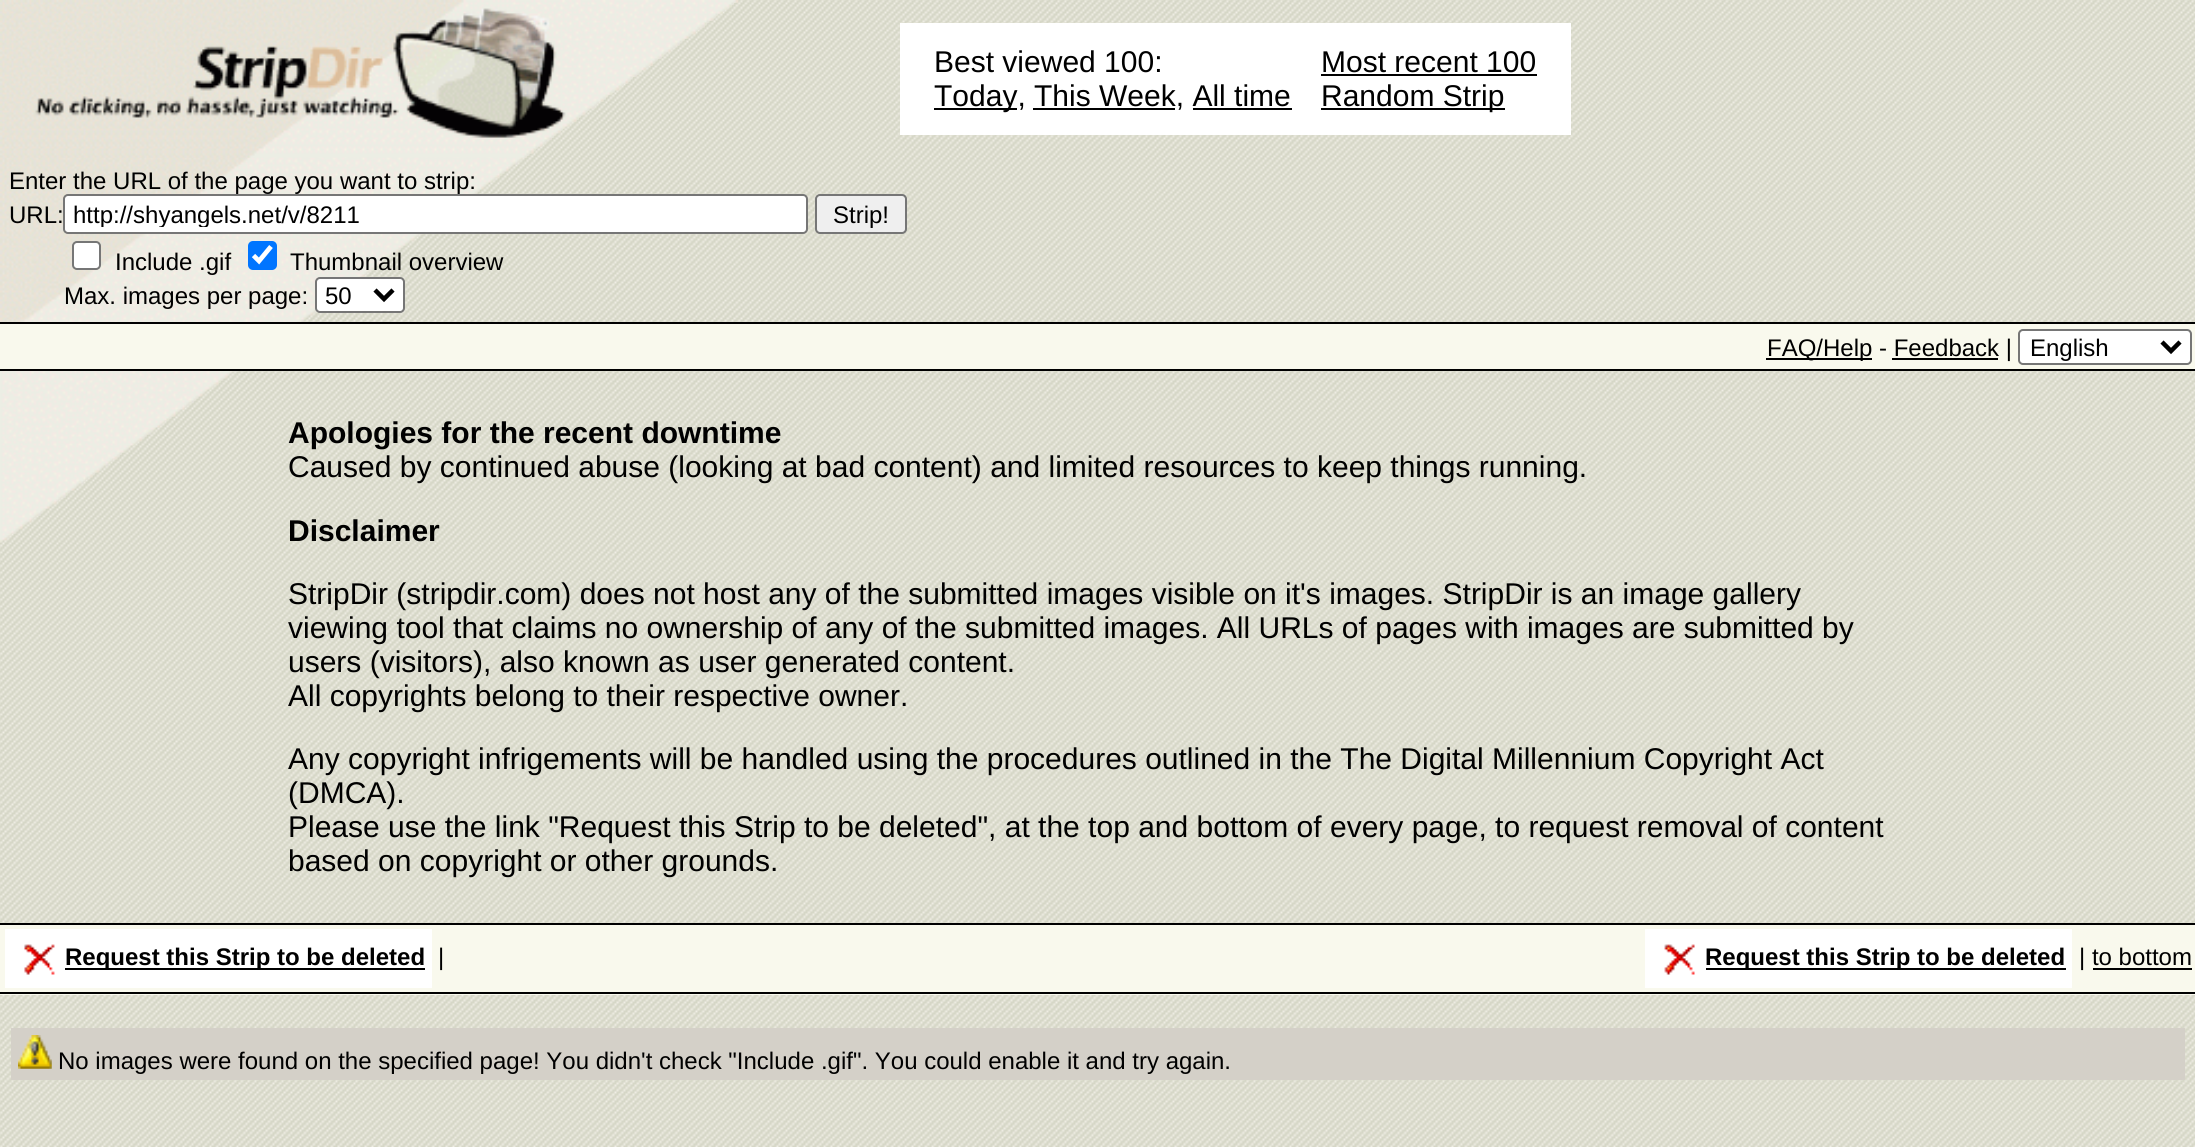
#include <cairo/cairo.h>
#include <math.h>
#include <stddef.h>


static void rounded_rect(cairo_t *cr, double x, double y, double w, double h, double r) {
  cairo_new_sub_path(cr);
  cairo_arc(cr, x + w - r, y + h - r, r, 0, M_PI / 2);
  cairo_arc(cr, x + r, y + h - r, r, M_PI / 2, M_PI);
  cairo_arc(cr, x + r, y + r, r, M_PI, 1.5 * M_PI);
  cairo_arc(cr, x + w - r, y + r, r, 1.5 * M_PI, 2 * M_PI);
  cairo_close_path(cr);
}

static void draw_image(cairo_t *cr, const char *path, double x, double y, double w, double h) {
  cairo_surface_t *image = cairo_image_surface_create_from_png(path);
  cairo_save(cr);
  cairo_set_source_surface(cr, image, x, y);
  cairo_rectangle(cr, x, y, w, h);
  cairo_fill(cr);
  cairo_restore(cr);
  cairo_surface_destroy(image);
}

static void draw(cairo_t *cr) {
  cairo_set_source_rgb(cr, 1, 1, 1);
  cairo_paint(cr);
  draw_image(cr, "images/1.png", 0, 0, 2195, 1147);
  draw_image(cr, "images/2.png", 0, 0, 739, 543);
  draw_image(cr, "images/3.png", 0, 0, 738, 158);
  cairo_set_source_rgb(cr, 1, 1, 1);
  cairo_rectangle(cr, 900, 23, 671, 112);
  cairo_fill(cr);
  cairo_set_source_rgb(cr, 0, 0, 0);
  cairo_rectangle(cr, 934, 108, 83, 2);
  cairo_fill(cr);
  cairo_rectangle(cr, 1033, 108, 142, 2);
  cairo_fill(cr);
  cairo_rectangle(cr, 1193, 108, 99, 2);
  cairo_fill(cr);
  cairo_rectangle(cr, 1321, 74, 216, 2);
  cairo_fill(cr);
  cairo_rectangle(cr, 1321, 108, 184, 2);
  cairo_fill(cr);
  cairo_set_source_rgb(cr, 1, 1, 1);
  rounded_rect(cr, 64, 195, 743, 38, 4);
  cairo_fill_preserve(cr);
  cairo_set_source_rgb(cr, 118 / 255.0, 118 / 255.0, 118 / 255.0);
  cairo_stroke(cr);
  cairo_set_source_rgb(cr, 239 / 255.0, 239 / 255.0, 239 / 255.0);
  rounded_rect(cr, 816, 195, 90, 38, 4);
  cairo_fill_preserve(cr);
  cairo_set_source_rgb(cr, 118 / 255.0, 118 / 255.0, 118 / 255.0);
  cairo_stroke(cr);
  cairo_set_source_rgb(cr, 1, 1, 1);
  rounded_rect(cr, 73, 242, 27, 27, 4);
  cairo_fill_preserve(cr);
  cairo_set_source_rgb(cr, 118 / 255.0, 118 / 255.0, 118 / 255.0);
  cairo_stroke(cr);
  cairo_set_source_rgb(cr, 0, 117 / 255.0, 1);
  rounded_rect(cr, 248, 241, 29, 29, 5);
  cairo_fill(cr);
  cairo_new_path(cr);
  cairo_move_to(cr, 253.5, 255.5);
  cairo_line_to(cr, 259, 261);
  cairo_line_to(cr, 271, 246.5);
  cairo_set_source_rgb(cr, 1, 1, 1);
  cairo_set_line_width(cr, 4.7);
  cairo_stroke(cr);
  rounded_rect(cr, 316, 278, 88, 34, 4);
  cairo_fill_preserve(cr);
  cairo_set_source_rgb(cr, 118 / 255.0, 118 / 255.0, 118 / 255.0);
  cairo_set_line_width(cr, 2);
  cairo_stroke(cr);
  cairo_new_path(cr);
  cairo_move_to(cr, 375, 290);
  cairo_line_to(cr, 384, 299);
  cairo_line_to(cr, 393, 290);
  cairo_set_source_rgb(cr, 0, 0, 0);
  cairo_set_line_width(cr, 4.5);
  cairo_stroke(cr);
  cairo_set_source_rgb(cr, 249 / 255.0, 249 / 255.0, 237 / 255.0);
  cairo_rectangle(cr, 0, 324, 2195, 45);
  cairo_fill(cr);
  cairo_set_source_rgb(cr, 0, 0, 0);
  cairo_rectangle(cr, 0, 322, 2195, 2);
  cairo_fill(cr);
  cairo_rectangle(cr, 0, 369, 2195, 2);
  cairo_fill(cr);
  cairo_rectangle(cr, 1766, 358, 106, 2);
  cairo_fill(cr);
  cairo_set_source_rgb(cr, 1, 1, 1);
  rounded_rect(cr, 2019, 330, 172, 34, 4);
  cairo_fill_preserve(cr);
  cairo_set_source_rgb(cr, 118 / 255.0, 118 / 255.0, 118 / 255.0);
  cairo_set_line_width(cr, 2);
  cairo_stroke(cr);
  cairo_new_path(cr);
  cairo_move_to(cr, 2162, 342);
  cairo_line_to(cr, 2171, 351);
  cairo_line_to(cr, 2180, 342);
  cairo_set_source_rgb(cr, 0, 0, 0);
  cairo_set_line_width(cr, 4.5);
  cairo_stroke(cr);
  cairo_rectangle(cr, 1892, 358, 106, 2);
  cairo_fill(cr);
  cairo_set_source_rgb(cr, 249 / 255.0, 249 / 255.0, 237 / 255.0);
  cairo_rectangle(cr, 0, 925, 2195, 70);
  cairo_fill(cr);
  cairo_set_source_rgb(cr, 0, 0, 0);
  cairo_rectangle(cr, 0, 923, 2195, 2);
  cairo_fill(cr);
  cairo_rectangle(cr, 0, 992, 2195, 2);
  cairo_fill(cr);
  cairo_set_source_rgb(cr, 1, 1, 1);
  cairo_rectangle(cr, 5, 929, 427, 59);
  cairo_fill(cr);
  draw_image(cr, "images/4.png", 24, 944, 31, 31);
  cairo_set_source_rgb(cr, 0, 0, 0);
  cairo_rectangle(cr, 65, 968, 360, 2);
  cairo_fill(cr);
  cairo_set_source_rgb(cr, 1, 1, 1);
  cairo_rectangle(cr, 1645, 929, 427, 59);
  cairo_fill(cr);
  draw_image(cr, "images/5.png", 1664, 944, 31, 31);
  cairo_set_source_rgb(cr, 0, 0, 0);
  cairo_rectangle(cr, 1706, 968, 360, 2);
  cairo_fill(cr);
  cairo_rectangle(cr, 2093, 968, 99, 2);
  cairo_fill(cr);
  cairo_set_source_rgb(cr, 212 / 255.0, 208 / 255.0, 200 / 255.0);
  cairo_rectangle(cr, 11, 1028, 2174, 52);
  cairo_fill(cr);
  draw_image(cr, "images/6.png", 18, 1035, 34, 34);
  cairo_select_font_face(cr, "Liberation Sans", CAIRO_FONT_SLANT_NORMAL, CAIRO_FONT_WEIGHT_NORMAL);
  cairo_set_font_size(cr, 30);
  cairo_set_source_rgb(cr, 0, 0, 0);
  cairo_move_to(cr, 934, 72);
  cairo_show_text(cr, "Best viewed 100:");
  cairo_move_to(cr, 934, 106);
  cairo_show_text(cr, "Today, This Week, All time");
  cairo_move_to(cr, 1321, 72);
  cairo_show_text(cr, "Most recent 100");
  cairo_move_to(cr, 1321, 106);
  cairo_show_text(cr, "Random Strip");
  cairo_set_font_size(cr, 24);
  cairo_move_to(cr, 9, 189);
  cairo_show_text(cr, "Enter the URL of the page you want to strip:");
  cairo_move_to(cr, 9, 223);
  cairo_show_text(cr, "URL:");
  cairo_save(cr);
  cairo_rectangle(cr, 72, 200, 727, 27);
  cairo_clip(cr);
  cairo_move_to(cr, 73, 223);
  cairo_show_text(cr, "http://shyangels.net/v/8211");
  cairo_restore(cr);
  cairo_move_to(cr, 833, 223);
  cairo_show_text(cr, "Strip!");
  cairo_move_to(cr, 115, 270);
  cairo_show_text(cr, "Include .gif");
  cairo_move_to(cr, 290, 270);
  cairo_show_text(cr, "Thumbnail overview");
  cairo_move_to(cr, 64, 304);
  cairo_show_text(cr, "Max. images per page:");
  cairo_move_to(cr, 325, 304);
  cairo_show_text(cr, "50");
  cairo_move_to(cr, 1767, 356);
  cairo_show_text(cr, "FAQ/Help - Feedback |");
  cairo_move_to(cr, 2030, 356);
  cairo_show_text(cr, "English");
  cairo_select_font_face(cr, "Liberation Sans", CAIRO_FONT_SLANT_NORMAL, CAIRO_FONT_WEIGHT_BOLD);
  cairo_set_font_size(cr, 30);
  cairo_move_to(cr, 288, 443);
  cairo_show_text(cr, "Apologies for the recent downtime");
  cairo_select_font_face(cr, "Liberation Sans", CAIRO_FONT_SLANT_NORMAL, CAIRO_FONT_WEIGHT_NORMAL);
  cairo_move_to(cr, 288, 477);
  cairo_show_text(cr, "Caused by continued abuse (looking at bad content) and limited resources to keep things running.");
  cairo_select_font_face(cr, "Liberation Sans", CAIRO_FONT_SLANT_NORMAL, CAIRO_FONT_WEIGHT_BOLD);
  cairo_move_to(cr, 288, 541);
  cairo_show_text(cr, "Disclaimer");
  cairo_select_font_face(cr, "Liberation Sans", CAIRO_FONT_SLANT_NORMAL, CAIRO_FONT_WEIGHT_NORMAL);
  cairo_move_to(cr, 288, 604);
  cairo_show_text(cr, "StripDir (stripdir.com) does not host any of the submitted images visible on it's images. StripDir is an image gallery");
  cairo_move_to(cr, 288, 638);
  cairo_show_text(cr, "viewing tool that claims no ownership of any of the submitted images. All URLs of pages with images are submitted by");
  cairo_move_to(cr, 288, 672);
  cairo_show_text(cr, "users (visitors), also known as user generated content.");
  cairo_move_to(cr, 288, 706);
  cairo_show_text(cr, "All copyrights belong to their respective owner.");
  cairo_move_to(cr, 288, 769);
  cairo_show_text(cr, "Any copyright infrigements will be handled using the procedures outlined in the The Digital Millennium Copyright Act");
  cairo_move_to(cr, 288, 803);
  cairo_show_text(cr, "(DMCA).");
  cairo_move_to(cr, 288, 837);
  cairo_show_text(cr, "Please use the link \"Request this Strip to be deleted\", at the top and bottom of every page, to request removal of content");
  cairo_move_to(cr, 288, 871);
  cairo_show_text(cr, "based on copyright or other grounds.");
  cairo_select_font_face(cr, "Liberation Sans", CAIRO_FONT_SLANT_NORMAL, CAIRO_FONT_WEIGHT_BOLD);
  cairo_set_font_size(cr, 24);
  cairo_move_to(cr, 65, 965);
  cairo_show_text(cr, "Request this Strip to be deleted");
  cairo_select_font_face(cr, "Liberation Sans", CAIRO_FONT_SLANT_NORMAL, CAIRO_FONT_WEIGHT_NORMAL);
  cairo_move_to(cr, 438, 965);
  cairo_show_text(cr, "|");
  cairo_select_font_face(cr, "Liberation Sans", CAIRO_FONT_SLANT_NORMAL, CAIRO_FONT_WEIGHT_BOLD);
  cairo_move_to(cr, 1705, 965);
  cairo_show_text(cr, "Request this Strip to be deleted");
  cairo_select_font_face(cr, "Liberation Sans", CAIRO_FONT_SLANT_NORMAL, CAIRO_FONT_WEIGHT_NORMAL);
  cairo_move_to(cr, 2079, 965);
  cairo_show_text(cr, "| to bottom");
  cairo_move_to(cr, 58, 1069);
  cairo_show_text(cr, "No images were found on the specified page! You didn't check \"Include .gif\". You could enable it and try again.");
}

int main(void) {
  cairo_surface_t *surface = cairo_image_surface_create(CAIRO_FORMAT_RGB24, 2195, 1147);
  cairo_t *cr = cairo_create(surface);
  cairo_font_options_t *options = cairo_font_options_create();
  cairo_font_options_set_hint_metrics(options, CAIRO_HINT_METRICS_OFF);
  cairo_font_options_set_hint_style(options, CAIRO_HINT_STYLE_NONE);
  cairo_set_font_options(cr, options);
  cairo_set_miter_limit(cr, 4);
  draw(cr);
  cairo_surface_write_to_png(surface, "out.png");
  cairo_font_options_destroy(options);
  cairo_destroy(cr);
  cairo_surface_destroy(surface);
  return 0;
}
